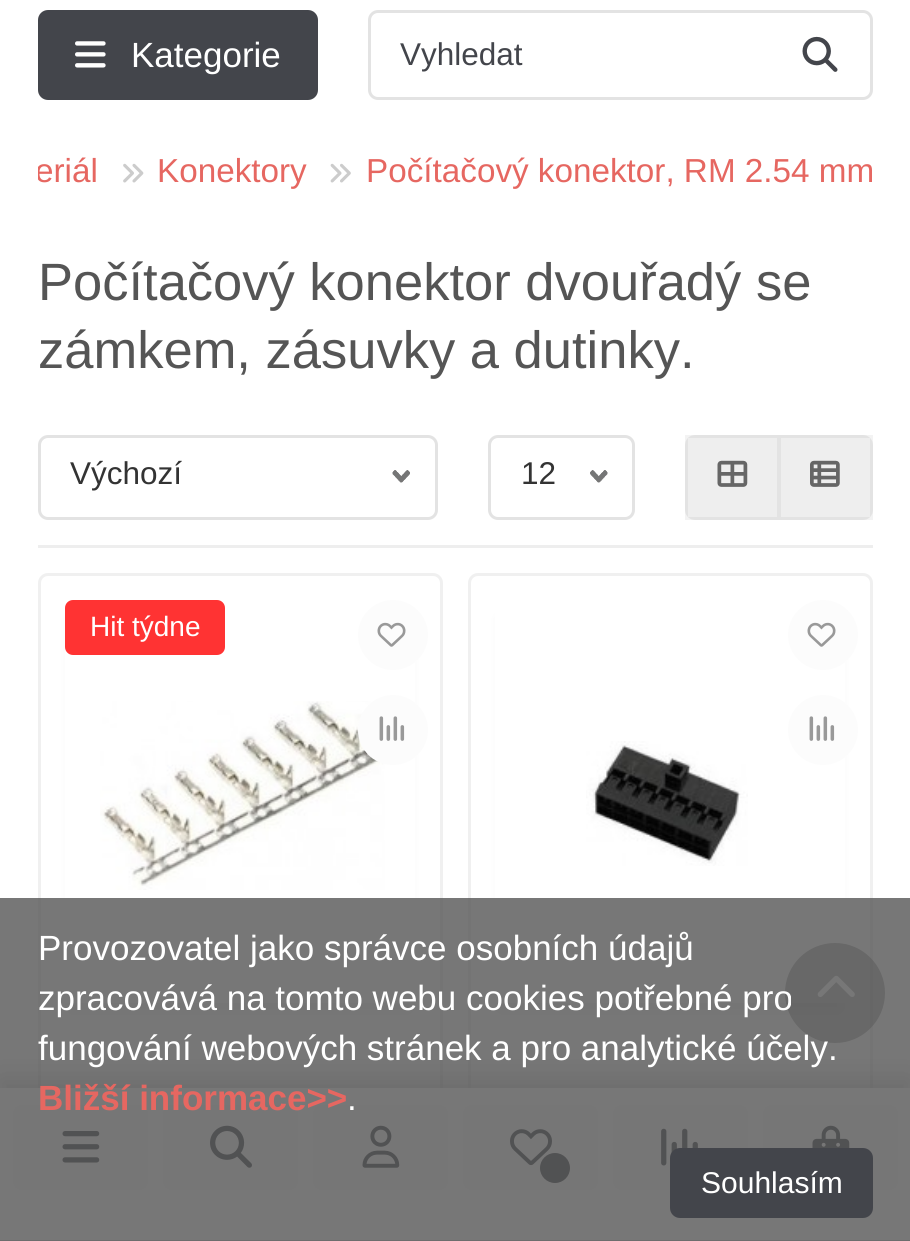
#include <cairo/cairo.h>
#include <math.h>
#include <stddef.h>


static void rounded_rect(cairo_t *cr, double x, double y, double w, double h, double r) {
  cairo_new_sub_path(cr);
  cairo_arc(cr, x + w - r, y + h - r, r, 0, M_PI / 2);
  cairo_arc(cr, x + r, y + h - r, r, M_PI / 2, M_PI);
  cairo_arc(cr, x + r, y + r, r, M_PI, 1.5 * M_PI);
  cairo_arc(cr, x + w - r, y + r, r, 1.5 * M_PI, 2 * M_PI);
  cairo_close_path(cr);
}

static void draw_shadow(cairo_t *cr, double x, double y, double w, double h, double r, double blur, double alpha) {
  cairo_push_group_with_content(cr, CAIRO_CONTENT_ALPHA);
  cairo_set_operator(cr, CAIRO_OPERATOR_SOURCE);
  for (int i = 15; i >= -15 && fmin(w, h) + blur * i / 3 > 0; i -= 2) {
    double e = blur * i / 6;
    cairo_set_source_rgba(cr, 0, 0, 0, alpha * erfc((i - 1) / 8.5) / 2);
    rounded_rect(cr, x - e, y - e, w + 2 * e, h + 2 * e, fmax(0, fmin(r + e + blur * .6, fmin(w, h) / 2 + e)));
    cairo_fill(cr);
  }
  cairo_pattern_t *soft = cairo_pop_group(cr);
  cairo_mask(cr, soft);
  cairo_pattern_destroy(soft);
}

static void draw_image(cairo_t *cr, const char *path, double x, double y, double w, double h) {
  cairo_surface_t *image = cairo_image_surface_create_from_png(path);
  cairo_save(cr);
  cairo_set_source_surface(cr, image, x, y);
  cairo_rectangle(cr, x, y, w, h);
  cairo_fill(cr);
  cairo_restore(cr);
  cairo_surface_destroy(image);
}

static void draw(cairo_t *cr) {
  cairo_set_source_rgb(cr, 1, 1, 1);
  cairo_paint(cr);
  cairo_set_source_rgb(cr, 67 / 255.0, 69 / 255.0, 75 / 255.0);
  rounded_rect(cr, 38, 10, 280, 90, 10);
  cairo_fill(cr);
  draw_image(cr, "images/1.png", 75, 41, 31, 27);
  rounded_rect(cr, 369.5, 11.5, 502, 87, 8.5);
  cairo_set_source_rgb(cr, 227 / 255.0, 227 / 255.0, 227 / 255.0);
  cairo_set_line_width(cr, 3);
  cairo_stroke(cr);
  draw_image(cr, "images/2.png", 802, 36, 36, 36);
  draw_image(cr, "images/3.png", 123, 163, 21, 20);
  draw_image(cr, "images/4.png", 330, 163, 21, 20);
  draw_image(cr, "images/5.png", 392, 470, 18, 13);
  rounded_rect(cr, 39.5, 436.5, 397, 82, 8.5);
  cairo_stroke(cr);
  draw_image(cr, "images/6.png", 590, 470, 18, 13);
  rounded_rect(cr, 489.5, 436.5, 144, 82, 8.5);
  cairo_stroke(cr);
  cairo_set_source_rgb(cr, 238 / 255.0, 238 / 255.0, 238 / 255.0);
  cairo_new_path(cr);
  cairo_move_to(cr, 695, 435);
  cairo_line_to(cr, 780, 435);
  cairo_line_to(cr, 780, 520);
  cairo_line_to(cr, 695, 520);
  cairo_curve_to(cr, 689.5, 520, 685, 515.5, 685, 510);
  cairo_line_to(cr, 685, 445);
  cairo_curve_to(cr, 685, 439.5, 689.5, 435, 695, 435);
  cairo_close_path(cr);
  cairo_fill(cr);
  cairo_rectangle(cr, 686.5, 436.5, 92, 82);
  cairo_set_source_rgba(cr, 0, 0, 0, 0.05);
  cairo_stroke(cr);
  draw_image(cr, "images/7.png", 717, 460, 31, 27);
  cairo_set_source_rgb(cr, 238 / 255.0, 238 / 255.0, 238 / 255.0);
  cairo_new_path(cr);
  cairo_move_to(cr, 778, 435);
  cairo_line_to(cr, 863, 435);
  cairo_curve_to(cr, 868.5, 435, 873, 439.5, 873, 445);
  cairo_line_to(cr, 873, 510);
  cairo_curve_to(cr, 873, 515.5, 868.5, 520, 863, 520);
  cairo_line_to(cr, 778, 520);
  cairo_close_path(cr);
  cairo_fill(cr);
  cairo_rectangle(cr, 779.5, 436.5, 92, 82);
  cairo_set_source_rgba(cr, 0, 0, 0, 0.05);
  cairo_stroke(cr);
  draw_image(cr, "images/8.png", 810, 460, 30, 27);
  cairo_set_source_rgb(cr, 238 / 255.0, 238 / 255.0, 238 / 255.0);
  cairo_rectangle(cr, 38, 545, 835, 3);
  cairo_fill(cr);
  rounded_rect(cr, 39.5, 574.5, 402, 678, 8.5);
  cairo_set_source_rgb(cr, 240 / 255.0, 240 / 255.0, 240 / 255.0);
  cairo_stroke(cr);
  cairo_save(cr);
  cairo_set_fill_rule(cr, CAIRO_FILL_RULE_EVEN_ODD);
  cairo_new_path(cr);
  cairo_move_to(cr, 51, 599);
  cairo_line_to(cr, 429, 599);
  cairo_line_to(cr, 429, 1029);
  cairo_line_to(cr, 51, 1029);
  cairo_close_path(cr);
  cairo_move_to(cr, 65, 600);
  cairo_line_to(cr, 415, 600);
  cairo_line_to(cr, 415, 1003);
  cairo_line_to(cr, 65, 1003);
  cairo_close_path(cr);
  cairo_clip(cr);
  cairo_set_source_rgb(cr, 0, 0, 0);
  draw_shadow(cr, 70, 618, 340, 392, 0, 6, 0.06);
  cairo_restore(cr);
  cairo_set_source_rgb(cr, 1, 51 / 255.0, 51 / 255.0);
  rounded_rect(cr, 65, 600, 160, 55, 8);
  cairo_fill(cr);
  draw_image(cr, "images/9.png", 100, 701, 285, 189);
  cairo_set_source_rgb(cr, 252 / 255.0, 252 / 255.0, 252 / 255.0);
  cairo_arc(cr, 393, 635, 35, 0, 2 * M_PI);
  cairo_fill(cr);
  draw_image(cr, "images/10.png", 377, 622, 29, 25);
  cairo_arc(cr, 393, 730, 35, 0, 2 * M_PI);
  cairo_fill(cr);
  draw_image(cr, "images/11.png", 379, 716, 26, 25);
  rounded_rect(cr, 469.5, 574.5, 402, 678, 8.5);
  cairo_set_source_rgb(cr, 240 / 255.0, 240 / 255.0, 240 / 255.0);
  cairo_stroke(cr);
  cairo_save(cr);
  cairo_set_fill_rule(cr, CAIRO_FILL_RULE_EVEN_ODD);
  cairo_new_path(cr);
  cairo_move_to(cr, 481, 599);
  cairo_line_to(cr, 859, 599);
  cairo_line_to(cr, 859, 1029);
  cairo_line_to(cr, 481, 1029);
  cairo_close_path(cr);
  cairo_move_to(cr, 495, 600);
  cairo_line_to(cr, 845, 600);
  cairo_line_to(cr, 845, 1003);
  cairo_line_to(cr, 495, 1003);
  cairo_close_path(cr);
  cairo_clip(cr);
  cairo_set_source_rgb(cr, 0, 0, 0);
  draw_shadow(cr, 500, 618, 340, 392, 0, 6, 0.06);
  cairo_restore(cr);
  draw_image(cr, "images/12.png", 586, 741, 162, 125);
  cairo_set_source_rgb(cr, 252 / 255.0, 252 / 255.0, 252 / 255.0);
  cairo_arc(cr, 823, 635, 35, 0, 2 * M_PI);
  cairo_fill(cr);
  draw_image(cr, "images/10.png", 807, 622, 29, 25);
  cairo_arc(cr, 823, 730, 35, 0, 2 * M_PI);
  cairo_fill(cr);
  draw_image(cr, "images/11.png", 809, 716, 26, 25);
  cairo_set_source_rgb(cr, 0, 0, 0);
  draw_shadow(cr, 0, 1078, 910, 155, 0, 12.5, 0.2);
  cairo_set_source_rgba(cr, 0, 0, 0, 0.3);
  cairo_arc(cr, 835, 993, 50, 0, 2 * M_PI);
  cairo_fill(cr);
  draw_image(cr, "images/13.png", 817, 975, 38, 22);
  cairo_set_source_rgb(cr, 1, 1, 1);
  cairo_rectangle(cr, 0, 1088, 910, 152);
  cairo_fill(cr);
  cairo_set_source_rgb(cr, 204 / 255.0, 204 / 255.0, 204 / 255.0);
  cairo_rectangle(cr, 0, 1240, 910, 1);
  cairo_fill(cr);
  cairo_set_source_rgb(cr, 251 / 255.0, 251 / 255.0, 251 / 255.0);
  rounded_rect(cr, 13, 1105, 135, 85, 8);
  cairo_fill(cr);
  draw_image(cr, "images/14.png", 62, 1131, 38, 32);
  rounded_rect(cr, 163, 1105, 135, 85, 8);
  cairo_fill(cr);
  draw_image(cr, "images/15.png", 210, 1125, 42, 43);
  rounded_rect(cr, 313, 1105, 135, 85, 8);
  cairo_fill(cr);
  draw_image(cr, "images/16.png", 362, 1125, 38, 43);
  rounded_rect(cr, 463, 1105, 135, 85, 8);
  cairo_fill(cr);
  draw_image(cr, "images/17.png", 510, 1129, 42, 37);
  cairo_set_source_rgb(cr, 67 / 255.0, 69 / 255.0, 75 / 255.0);
  cairo_arc(cr, 555, 1168, 15, 0, 2 * M_PI);
  cairo_fill(cr);
  cairo_set_source_rgb(cr, 251 / 255.0, 251 / 255.0, 251 / 255.0);
  rounded_rect(cr, 613, 1105, 135, 85, 8);
  cairo_fill(cr);
  draw_image(cr, "images/18.png", 661, 1128, 37, 38);
  rounded_rect(cr, 763, 1105, 135, 85, 8);
  cairo_fill(cr);
  draw_image(cr, "images/19.png", 812, 1125, 38, 23);
  cairo_set_source_rgba(cr, 85 / 255.0, 85 / 255.0, 85 / 255.0, 0.8);
  cairo_rectangle(cr, 0, 898, 910, 343);
  cairo_fill(cr);
  cairo_set_source_rgb(cr, 67 / 255.0, 69 / 255.0, 75 / 255.0);
  rounded_rect(cr, 670, 1148, 203, 70, 10);
  cairo_fill(cr);
  cairo_select_font_face(cr, "Liberation Sans", CAIRO_FONT_SLANT_NORMAL, CAIRO_FONT_WEIGHT_NORMAL);
  cairo_set_font_size(cr, 35);
  cairo_set_source_rgb(cr, 1, 1, 1);
  cairo_move_to(cr, 131, 67);
  cairo_show_text(cr, "Kategorie");
  cairo_set_font_size(cr, 31.5);
  cairo_set_source_rgb(cr, 67 / 255.0, 69 / 255.0, 75 / 255.0);
  cairo_move_to(cr, 400, 65);
  cairo_show_text(cr, "Vyhledat");
  cairo_save(cr);
  rounded_rect(cr, 38, 150, 835, 73, 10);
  cairo_clip(cr);
  cairo_set_font_size(cr, 33.25);
  cairo_set_source_rgb(cr, 230 / 255.0, 103 / 255.0, 97 / 255.0);
  cairo_move_to(cr, 35, 182);
  cairo_show_text(cr, "eriál");
  cairo_restore(cr);
  cairo_set_font_size(cr, 33.25);
  cairo_set_source_rgb(cr, 230 / 255.0, 103 / 255.0, 97 / 255.0);
  cairo_move_to(cr, 157, 182);
  cairo_show_text(cr, "Konektory");
  cairo_move_to(cr, 366, 182);
  cairo_show_text(cr, "Počítačový konektor, RM 2.54 mm");
  cairo_set_font_size(cr, 52.5);
  cairo_set_source_rgb(cr, 85 / 255.0, 85 / 255.0, 85 / 255.0);
  cairo_move_to(cr, 38, 300);
  cairo_show_text(cr, "Počítačový konektor dvouřadý se");
  cairo_move_to(cr, 38, 368);
  cairo_show_text(cr, "zámkem, zásuvky a dutinky.");
  cairo_set_font_size(cr, 31.5);
  cairo_set_source_rgb(cr, 51 / 255.0, 51 / 255.0, 51 / 255.0);
  cairo_move_to(cr, 70, 484);
  cairo_show_text(cr, "Výchozí");
  cairo_move_to(cr, 521, 484);
  cairo_show_text(cr, "12");
  cairo_set_font_size(cr, 28);
  cairo_set_source_rgb(cr, 1, 1, 1);
  cairo_move_to(cr, 90, 636);
  cairo_show_text(cr, "Hit týdne");
  cairo_set_font_size(cr, 35);
  cairo_move_to(cr, 38, 960);
  cairo_show_text(cr, "Provozovatel jako správce osobních údajů");
  cairo_move_to(cr, 38, 1010);
  cairo_show_text(cr, "zpracovává na tomto webu cookies potřebné pro");
  cairo_move_to(cr, 38, 1060);
  cairo_show_text(cr, "fungování webových stránek a pro analytické účely.");
  cairo_select_font_face(cr, "Liberation Sans", CAIRO_FONT_SLANT_NORMAL, CAIRO_FONT_WEIGHT_BOLD);
  cairo_set_source_rgb(cr, 230 / 255.0, 103 / 255.0, 97 / 255.0);
  cairo_move_to(cr, 38, 1110);
  cairo_show_text(cr, "Bližší informace>>");
  cairo_select_font_face(cr, "Liberation Sans", CAIRO_FONT_SLANT_NORMAL, CAIRO_FONT_WEIGHT_NORMAL);
  cairo_set_source_rgb(cr, 1, 1, 1);
  cairo_move_to(cr, 347, 1110);
  cairo_show_text(cr, ".");
  cairo_set_font_size(cr, 30);
  cairo_move_to(cr, 701, 1193);
  cairo_show_text(cr, "Souhlasím");
}

int main(void) {
  cairo_surface_t *surface = cairo_image_surface_create(CAIRO_FORMAT_RGB24, 910, 1241);
  cairo_t *cr = cairo_create(surface);
  cairo_font_options_t *options = cairo_font_options_create();
  cairo_font_options_set_hint_metrics(options, CAIRO_HINT_METRICS_OFF);
  cairo_font_options_set_hint_style(options, CAIRO_HINT_STYLE_NONE);
  cairo_set_font_options(cr, options);
  cairo_set_miter_limit(cr, 4);
  draw(cr);
  cairo_surface_write_to_png(surface, "out.png");
  cairo_font_options_destroy(options);
  cairo_destroy(cr);
  cairo_surface_destroy(surface);
  return 0;
}
